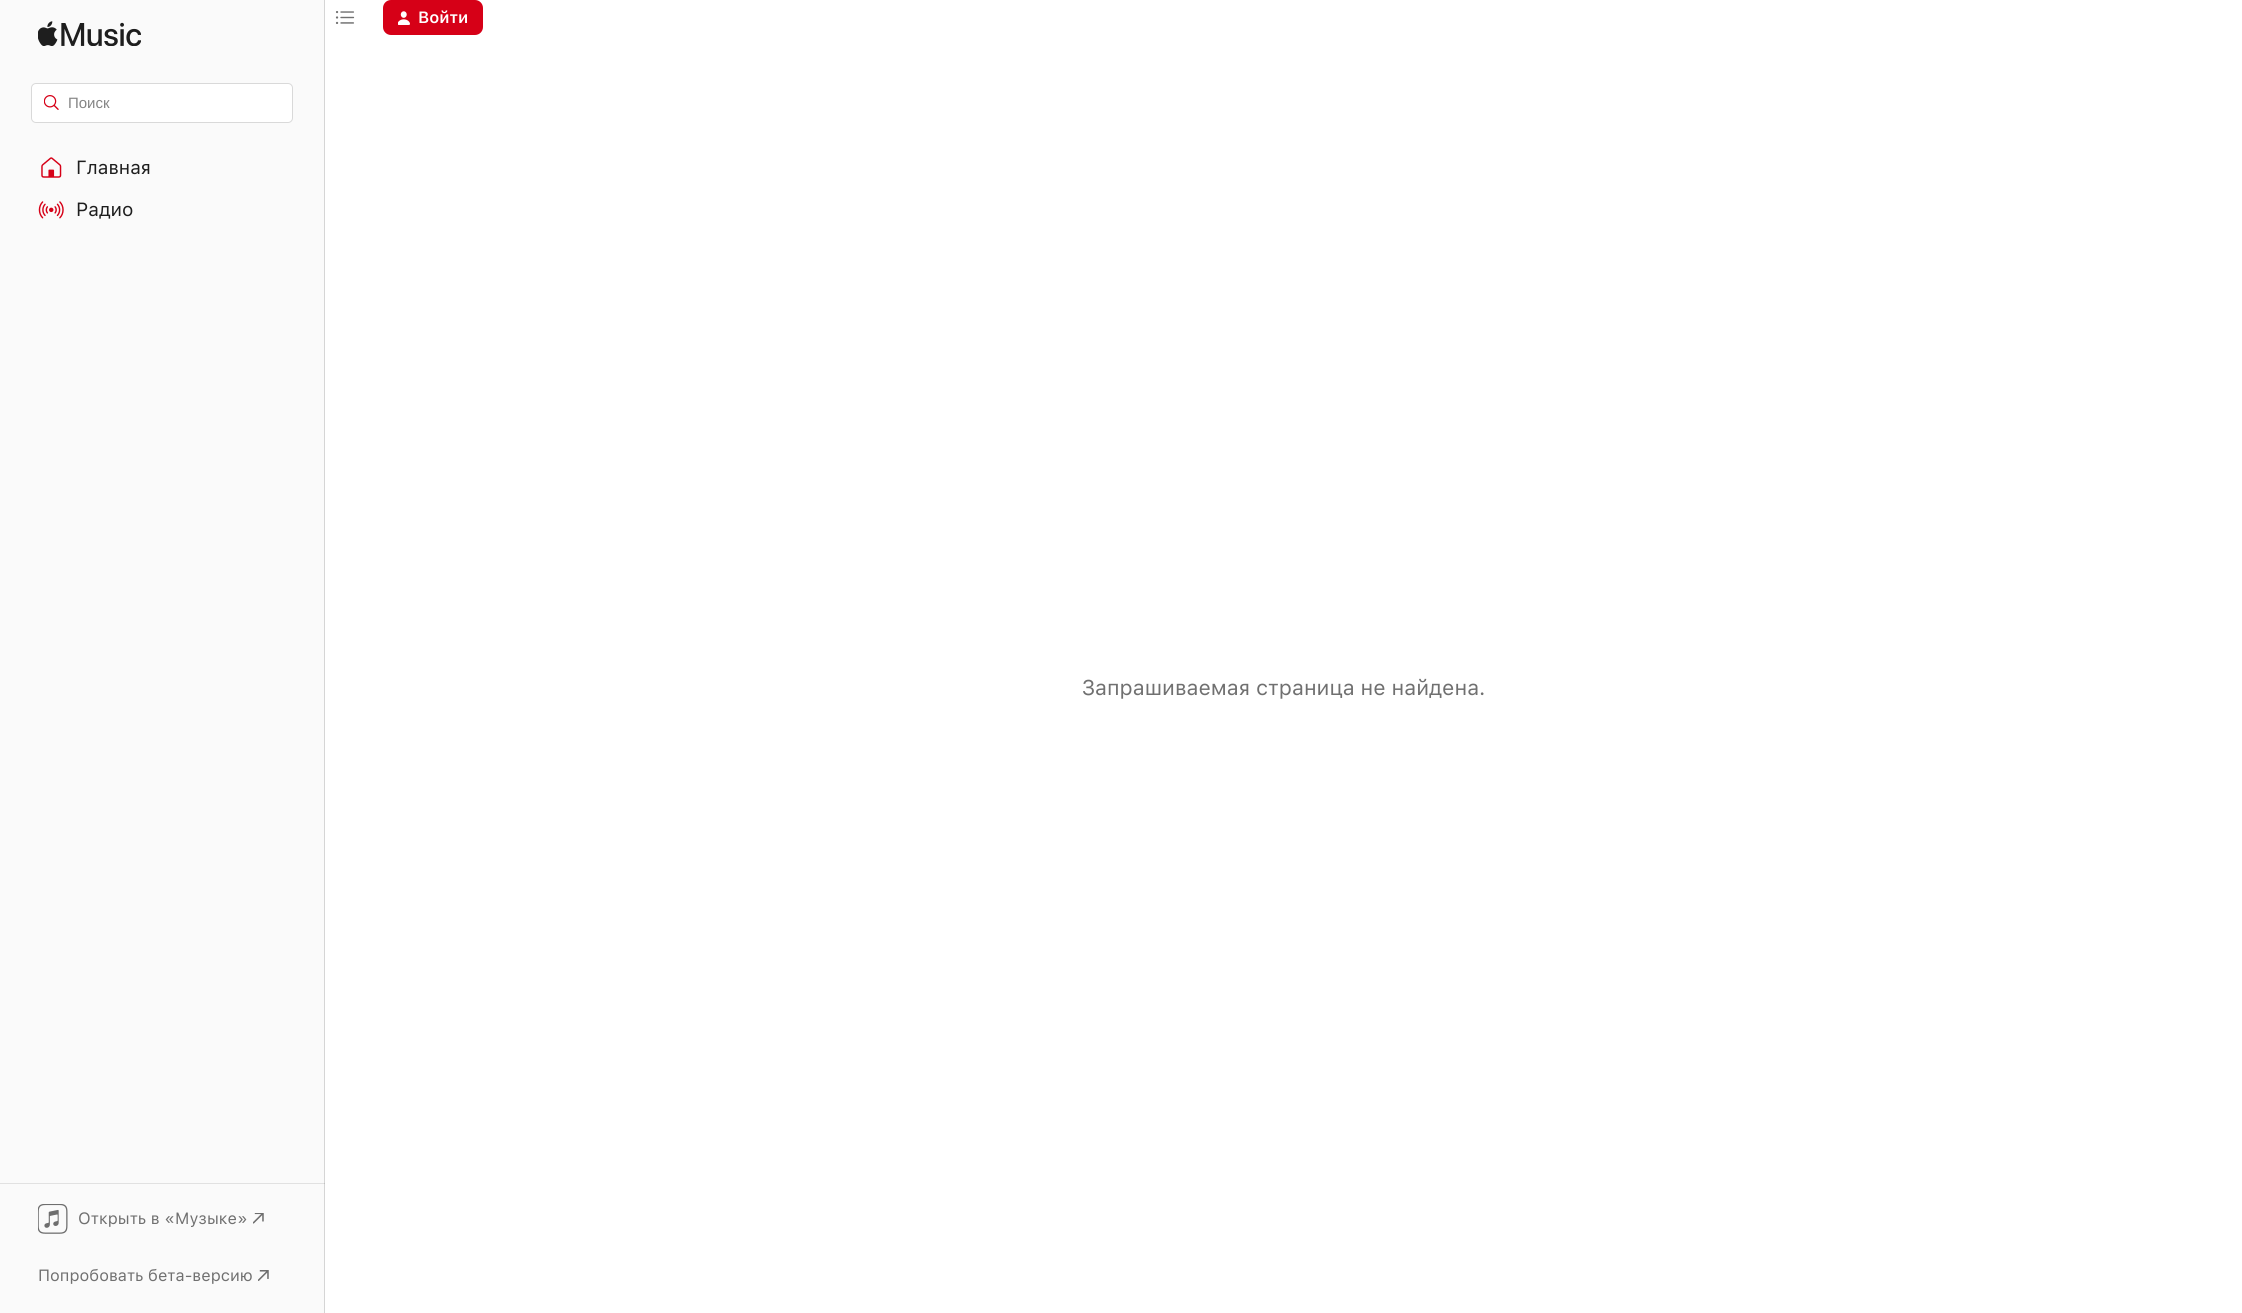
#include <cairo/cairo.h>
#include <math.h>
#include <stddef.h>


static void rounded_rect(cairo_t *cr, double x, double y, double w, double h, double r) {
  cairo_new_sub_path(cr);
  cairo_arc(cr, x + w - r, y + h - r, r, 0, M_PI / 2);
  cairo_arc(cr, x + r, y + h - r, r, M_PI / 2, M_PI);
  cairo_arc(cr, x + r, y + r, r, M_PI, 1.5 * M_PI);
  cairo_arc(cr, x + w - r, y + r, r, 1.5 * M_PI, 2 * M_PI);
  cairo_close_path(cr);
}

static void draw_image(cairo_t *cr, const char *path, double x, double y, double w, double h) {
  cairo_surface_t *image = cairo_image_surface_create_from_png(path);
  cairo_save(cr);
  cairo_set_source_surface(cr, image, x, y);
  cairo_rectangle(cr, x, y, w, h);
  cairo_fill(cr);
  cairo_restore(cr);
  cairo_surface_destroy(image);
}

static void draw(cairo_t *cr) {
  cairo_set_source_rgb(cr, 1, 1, 1);
  cairo_paint(cr);
  draw_image(cr, "images/1.png", 335, 11, 20, 13);
  cairo_set_source_rgb(cr, 214 / 255.0, 0, 23 / 255.0);
  rounded_rect(cr, 383, 0, 100, 35, 8);
  cairo_fill(cr);
  draw_image(cr, "images/2.png", 398, 11, 12, 14);
  cairo_set_source_rgb(cr, 250 / 255.0, 250 / 255.0, 250 / 255.0);
  cairo_rectangle(cr, 0, 0, 324, 1313);
  cairo_fill(cr);
  cairo_set_source_rgb(cr, 225 / 255.0, 225 / 255.0, 225 / 255.0);
  cairo_rectangle(cr, 0, 1183, 325, 1);
  cairo_fill(cr);
  cairo_set_source_rgb(cr, 213 / 255.0, 213 / 255.0, 213 / 255.0);
  cairo_rectangle(cr, 324, 0, 1, 1313);
  cairo_fill(cr);
  cairo_set_source_rgb(cr, 192 / 255.0, 192 / 255.0, 192 / 255.0);
  cairo_rectangle(cr, 324, 1183, 1, 1);
  cairo_fill(cr);
  draw_image(cr, "images/3.png", 38, 21, 103, 25);
  cairo_set_source_rgb(cr, 1, 1, 1);
  rounded_rect(cr, 31.5, 83.5, 261, 39, 4.5);
  cairo_fill_preserve(cr);
  cairo_set_source_rgb(cr, 217 / 255.0, 217 / 255.0, 217 / 255.0);
  cairo_set_line_width(cr, 1);
  cairo_stroke(cr);
  draw_image(cr, "images/4.png", 44, 95, 15, 15);
  draw_image(cr, "images/5.png", 41, 157, 21, 21);
  draw_image(cr, "images/6.png", 38, 201, 26, 18);
  draw_image(cr, "images/7.png", 38, 1204, 30, 30);
  draw_image(cr, "images/8.png", 253, 1213, 11, 11);
  draw_image(cr, "images/9.png", 258, 1270, 11, 11);
  cairo_select_font_face(cr, "SF SemiBold", CAIRO_FONT_SLANT_NORMAL, CAIRO_FONT_WEIGHT_NORMAL);
  cairo_set_font_size(cr, 16.25);
  cairo_set_source_rgb(cr, 1, 1, 1);
  cairo_move_to(cr, 418, 23);
  cairo_show_text(cr, "Войти");
  cairo_select_font_face(cr, "Liberation Sans", CAIRO_FONT_SLANT_NORMAL, CAIRO_FONT_WEIGHT_NORMAL);
  cairo_set_font_size(cr, 15);
  cairo_set_source_rgb(cr, 133 / 255.0, 133 / 255.0, 133 / 255.0);
  cairo_move_to(cr, 68, 108);
  cairo_show_text(cr, "Поиск");
  cairo_select_font_face(cr, "SF", CAIRO_FONT_SLANT_NORMAL, CAIRO_FONT_WEIGHT_NORMAL);
  cairo_set_font_size(cr, 19);
  cairo_set_source_rgb(cr, 30 / 255.0, 30 / 255.0, 30 / 255.0);
  cairo_move_to(cr, 76, 174);
  cairo_show_text(cr, "Главная");
  cairo_move_to(cr, 76, 216);
  cairo_show_text(cr, "Радио");
  cairo_set_font_size(cr, 16.25);
  cairo_set_source_rgb(cr, 112 / 255.0, 112 / 255.0, 112 / 255.0);
  cairo_move_to(cr, 78, 1224);
  cairo_show_text(cr, "Открыть в «Музыке»");
  cairo_move_to(cr, 38, 1281);
  cairo_show_text(cr, "Попробовать бета-версию");
  cairo_set_font_size(cr, 21.25);
  cairo_move_to(cr, 1082, 695);
  cairo_show_text(cr, "Запрашиваемая страница не найдена.");
}

int main(void) {
  cairo_surface_t *surface = cairo_image_surface_create(CAIRO_FORMAT_RGB24, 2242, 1313);
  cairo_t *cr = cairo_create(surface);
  cairo_font_options_t *options = cairo_font_options_create();
  cairo_font_options_set_hint_metrics(options, CAIRO_HINT_METRICS_OFF);
  cairo_font_options_set_hint_style(options, CAIRO_HINT_STYLE_NONE);
  cairo_set_font_options(cr, options);
  cairo_set_miter_limit(cr, 4);
  draw(cr);
  cairo_surface_write_to_png(surface, "out.png");
  cairo_font_options_destroy(options);
  cairo_destroy(cr);
  cairo_surface_destroy(surface);
  return 0;
}
